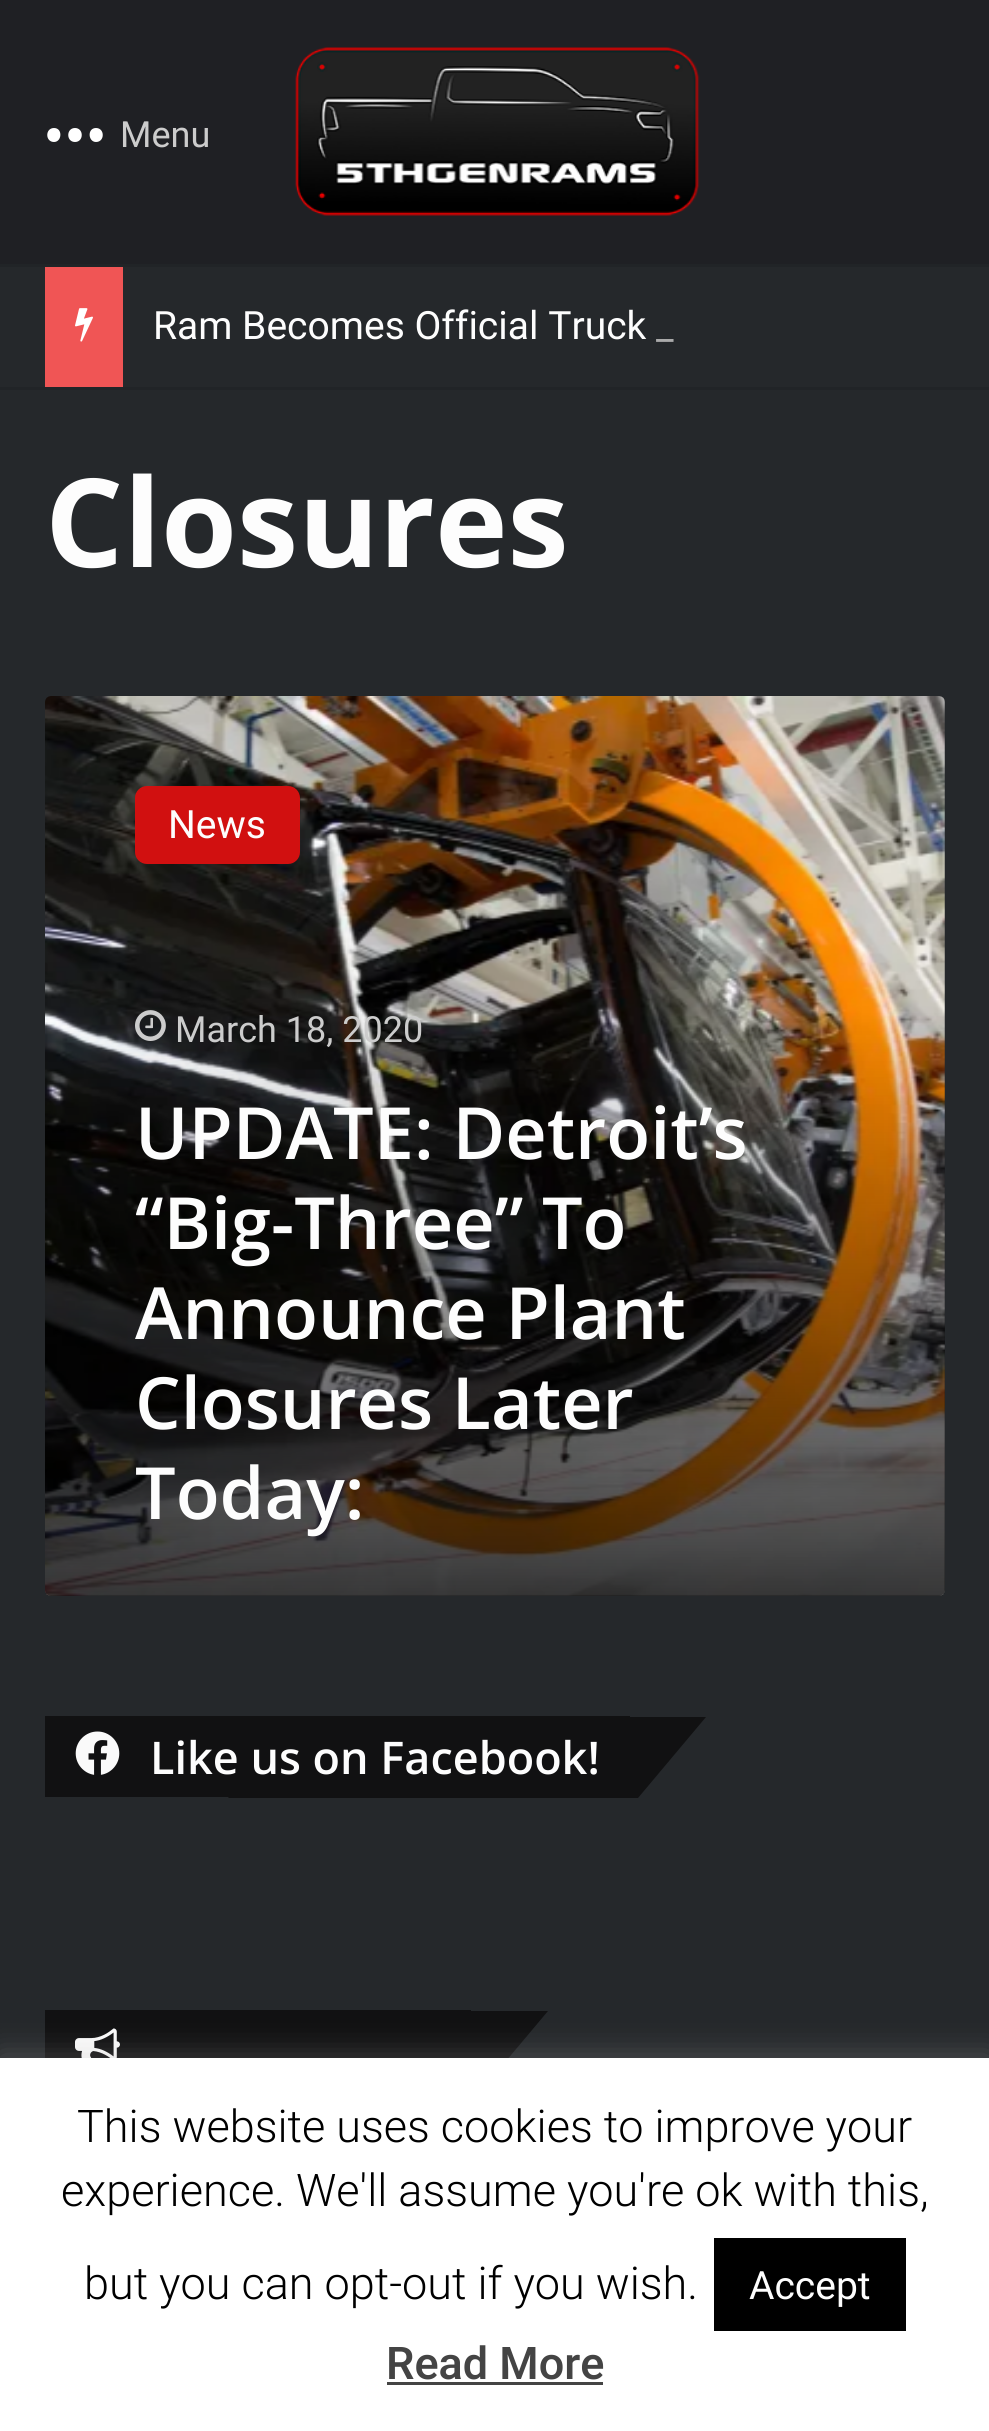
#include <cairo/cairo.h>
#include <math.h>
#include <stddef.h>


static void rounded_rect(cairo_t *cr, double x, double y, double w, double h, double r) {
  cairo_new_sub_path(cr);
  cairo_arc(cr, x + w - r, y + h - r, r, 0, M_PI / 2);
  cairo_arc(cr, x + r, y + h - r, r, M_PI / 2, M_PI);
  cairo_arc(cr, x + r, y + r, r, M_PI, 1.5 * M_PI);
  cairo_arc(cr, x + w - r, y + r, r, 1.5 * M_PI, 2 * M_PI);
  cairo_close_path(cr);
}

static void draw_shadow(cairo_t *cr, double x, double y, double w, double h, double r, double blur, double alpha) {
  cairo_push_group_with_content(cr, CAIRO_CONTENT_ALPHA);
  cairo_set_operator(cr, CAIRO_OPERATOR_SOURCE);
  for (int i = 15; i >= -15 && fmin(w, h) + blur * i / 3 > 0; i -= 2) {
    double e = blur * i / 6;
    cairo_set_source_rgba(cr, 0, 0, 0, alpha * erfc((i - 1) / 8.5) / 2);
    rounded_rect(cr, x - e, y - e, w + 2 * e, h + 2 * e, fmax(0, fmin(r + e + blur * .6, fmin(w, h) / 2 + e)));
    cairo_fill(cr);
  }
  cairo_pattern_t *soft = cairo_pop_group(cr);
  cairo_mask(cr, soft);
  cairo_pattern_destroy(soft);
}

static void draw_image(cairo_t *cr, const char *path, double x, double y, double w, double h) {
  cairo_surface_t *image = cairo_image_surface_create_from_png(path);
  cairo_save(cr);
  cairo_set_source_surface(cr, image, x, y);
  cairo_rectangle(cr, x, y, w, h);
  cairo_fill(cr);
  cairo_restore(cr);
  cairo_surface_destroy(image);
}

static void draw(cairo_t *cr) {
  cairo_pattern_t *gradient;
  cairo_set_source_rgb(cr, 37 / 255.0, 40 / 255.0, 43 / 255.0);
  cairo_paint(cr);
  cairo_set_source_rgb(cr, 31 / 255.0, 32 / 255.0, 36 / 255.0);
  cairo_rectangle(cr, 0, 0, 989, 264);
  cairo_fill(cr);
  cairo_set_source_rgb(cr, 1, 1, 1);
  cairo_new_path(cr);
  cairo_move_to(cr, 75, 128);
  cairo_curve_to(cr, 66, 128, 66, 142, 75, 142);
  cairo_curve_to(cr, 84, 142, 84, 128, 75, 128);
  cairo_close_path(cr);
  cairo_move_to(cr, 54, 128);
  cairo_curve_to(cr, 45, 128, 45, 142, 54, 142);
  cairo_curve_to(cr, 62, 142, 63, 128, 54, 128);
  cairo_close_path(cr);
  cairo_move_to(cr, 96, 128);
  cairo_curve_to(cr, 87, 128, 88, 142, 96, 142);
  cairo_curve_to(cr, 105, 142, 105, 128, 96, 128);
  cairo_close_path(cr);
  cairo_fill(cr);
  draw_image(cr, "images/1.png", 295, 47, 405, 169);
  cairo_set_source_rgb(cr, 33 / 255.0, 36 / 255.0, 39 / 255.0);
  cairo_rectangle(cr, 0, 264, 989, 3);
  cairo_fill(cr);
  cairo_rectangle(cr, 0, 387, 989, 3);
  cairo_fill(cr);
  cairo_set_source_rgb(cr, 240 / 255.0, 85 / 255.0, 85 / 255.0);
  cairo_rectangle(cr, 45, 267, 78, 120);
  cairo_fill(cr);
  draw_image(cr, "images/2.png", 75, 308, 18, 34);
  draw_image(cr, "images/3.png", 45, 696, 900, 900);
  cairo_set_source_rgb(cr, 209 / 255.0, 16 / 255.0, 16 / 255.0);
  rounded_rect(cr, 135, 786, 165, 78, 12);
  cairo_fill(cr);
  gradient = cairo_pattern_create_linear(495, 1011, 495, 1596);
  cairo_pattern_add_color_stop_rgba(gradient, 0, 0, 0, 0, 0);
  cairo_pattern_add_color_stop_rgba(gradient, 1, 0, 0, 0, 0.75);
  cairo_set_source(cr, gradient);
  cairo_pattern_destroy(gradient);
  cairo_new_path(cr);
  cairo_move_to(cr, 45, 1011);
  cairo_line_to(cr, 945, 1011);
  cairo_line_to(cr, 945, 1590);
  cairo_curve_to(cr, 945, 1593.5, 942.5, 1596, 939, 1596);
  cairo_line_to(cr, 51, 1596);
  cairo_curve_to(cr, 47.5, 1596, 45, 1593.5, 45, 1590);
  cairo_close_path(cr);
  cairo_fill(cr);
  draw_image(cr, "images/4.png", 135, 1010, 31, 31);
  cairo_set_source_rgb(cr, 17 / 255.0, 17 / 255.0, 18 / 255.0);
  cairo_rectangle(cr, 45, 1716, 585, 81);
  cairo_fill(cr);
  cairo_new_path(cr);
  cairo_move_to(cr, 296, 1717);
  cairo_line_to(cr, 706, 1717);
  cairo_line_to(cr, 638, 1798);
  cairo_line_to(cr, 228, 1798);
  cairo_close_path(cr);
  cairo_fill(cr);
  draw_image(cr, "images/5.png", 75, 1731, 45, 44);
  cairo_rectangle(cr, 45, 2010, 426, 48);
  cairo_fill(cr);
  draw_image(cr, "images/6.png", 75, 2028, 45, 30);
  cairo_new_path(cr);
  cairo_move_to(cr, 249, 2011);
  cairo_line_to(cr, 548, 2011);
  cairo_line_to(cr, 480, 2092);
  cairo_line_to(cr, 181, 2092);
  cairo_close_path(cr);
  cairo_fill(cr);
  cairo_set_source_rgb(cr, 172 / 255.0, 171 / 255.0, 171 / 255.0);
  draw_shadow(cr, 0, 2055, 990, 375, 0, 15, 0.3);
  cairo_set_source_rgb(cr, 1, 1, 1);
  cairo_rectangle(cr, 0, 2058, 989, 373);
  cairo_fill(cr);
  cairo_set_source_rgb(cr, 0, 0, 0);
  cairo_rectangle(cr, 714, 2238, 192, 93);
  cairo_fill(cr);
  cairo_set_source_rgb(cr, 68 / 255.0, 68 / 255.0, 68 / 255.0);
  cairo_rectangle(cr, 387, 2382, 216, 3);
  cairo_fill(cr);
  cairo_select_font_face(cr, "Roboto", CAIRO_FONT_SLANT_NORMAL, CAIRO_FONT_WEIGHT_NORMAL);
  cairo_set_font_size(cr, 36);
  cairo_set_source_rgb(cr, 204 / 255.0, 204 / 255.0, 204 / 255.0);
  cairo_move_to(cr, 120, 147);
  cairo_show_text(cr, "Menu");
  cairo_set_font_size(cr, 39);
  cairo_set_source_rgb(cr, 253 / 255.0, 253 / 255.0, 253 / 255.0);
  cairo_move_to(cr, 153, 339);
  cairo_show_text(cr, "Ram Becomes Official Truck");
  cairo_set_source_rgb(cr, 170 / 255.0, 170 / 255.0, 170 / 255.0);
  cairo_move_to(cr, 656, 339);
  cairo_show_text(cr, "_");
  cairo_select_font_face(cr, "Open Sans", CAIRO_FONT_SLANT_NORMAL, CAIRO_FONT_WEIGHT_BOLD);
  cairo_set_font_size(cr, 123);
  cairo_set_source_rgb(cr, 253 / 255.0, 253 / 255.0, 253 / 255.0);
  cairo_move_to(cr, 45, 567);
  cairo_show_text(cr, "Closures");
  cairo_select_font_face(cr, "Roboto", CAIRO_FONT_SLANT_NORMAL, CAIRO_FONT_WEIGHT_NORMAL);
  cairo_set_font_size(cr, 39);
  cairo_move_to(cr, 168, 838);
  cairo_show_text(cr, "News");
  cairo_set_font_size(cr, 36);
  cairo_set_source_rgb(cr, 204 / 255.0, 204 / 255.0, 204 / 255.0);
  cairo_move_to(cr, 175, 1042);
  cairo_show_text(cr, "March 18, 2020");
  cairo_select_font_face(cr, "Open Sans SemiBold", CAIRO_FONT_SLANT_NORMAL, CAIRO_FONT_WEIGHT_NORMAL);
  cairo_set_font_size(cr, 72);
  cairo_set_source_rgb(cr, 253 / 255.0, 253 / 255.0, 253 / 255.0);
  cairo_move_to(cr, 135, 1159);
  cairo_show_text(cr, "UPDATE: Detroit’s");
  cairo_move_to(cr, 135, 1249);
  cairo_show_text(cr, "“Big-Three” To");
  cairo_move_to(cr, 135, 1339);
  cairo_show_text(cr, "Announce Plant");
  cairo_move_to(cr, 135, 1429);
  cairo_show_text(cr, "Closures Later");
  cairo_move_to(cr, 135, 1519);
  cairo_show_text(cr, "Today:");
  cairo_set_font_size(cr, 45);
  cairo_move_to(cr, 150, 1774);
  cairo_show_text(cr, "Like us on Facebook!");
  cairo_select_font_face(cr, "Roboto Light", CAIRO_FONT_SLANT_NORMAL, CAIRO_FONT_WEIGHT_NORMAL);
  cairo_set_source_rgb(cr, 0, 0, 0);
  cairo_move_to(cr, 77, 2142);
  cairo_show_text(cr, "This website uses cookies to improve your");
  cairo_move_to(cr, 61, 2206);
  cairo_show_text(cr, "experience. We'll assume you're ok with this,");
  cairo_move_to(cr, 84, 2299);
  cairo_show_text(cr, "but you can opt-out if you wish.");
  cairo_select_font_face(cr, "Roboto", CAIRO_FONT_SLANT_NORMAL, CAIRO_FONT_WEIGHT_NORMAL);
  cairo_set_font_size(cr, 39);
  cairo_set_source_rgb(cr, 253 / 255.0, 253 / 255.0, 253 / 255.0);
  cairo_move_to(cr, 749, 2299);
  cairo_show_text(cr, "Accept");
  cairo_select_font_face(cr, "Roboto Medium", CAIRO_FONT_SLANT_NORMAL, CAIRO_FONT_WEIGHT_NORMAL);
  cairo_set_font_size(cr, 45);
  cairo_set_source_rgb(cr, 68 / 255.0, 68 / 255.0, 68 / 255.0);
  cairo_move_to(cr, 386, 2379);
  cairo_show_text(cr, "Read More");
}

int main(void) {
  cairo_surface_t *surface = cairo_image_surface_create(CAIRO_FORMAT_RGB24, 989, 2431);
  cairo_t *cr = cairo_create(surface);
  cairo_font_options_t *options = cairo_font_options_create();
  cairo_font_options_set_hint_metrics(options, CAIRO_HINT_METRICS_OFF);
  cairo_font_options_set_hint_style(options, CAIRO_HINT_STYLE_NONE);
  cairo_set_font_options(cr, options);
  cairo_set_miter_limit(cr, 4);
  draw(cr);
  cairo_surface_write_to_png(surface, "out.png");
  cairo_font_options_destroy(options);
  cairo_destroy(cr);
  cairo_surface_destroy(surface);
  return 0;
}
